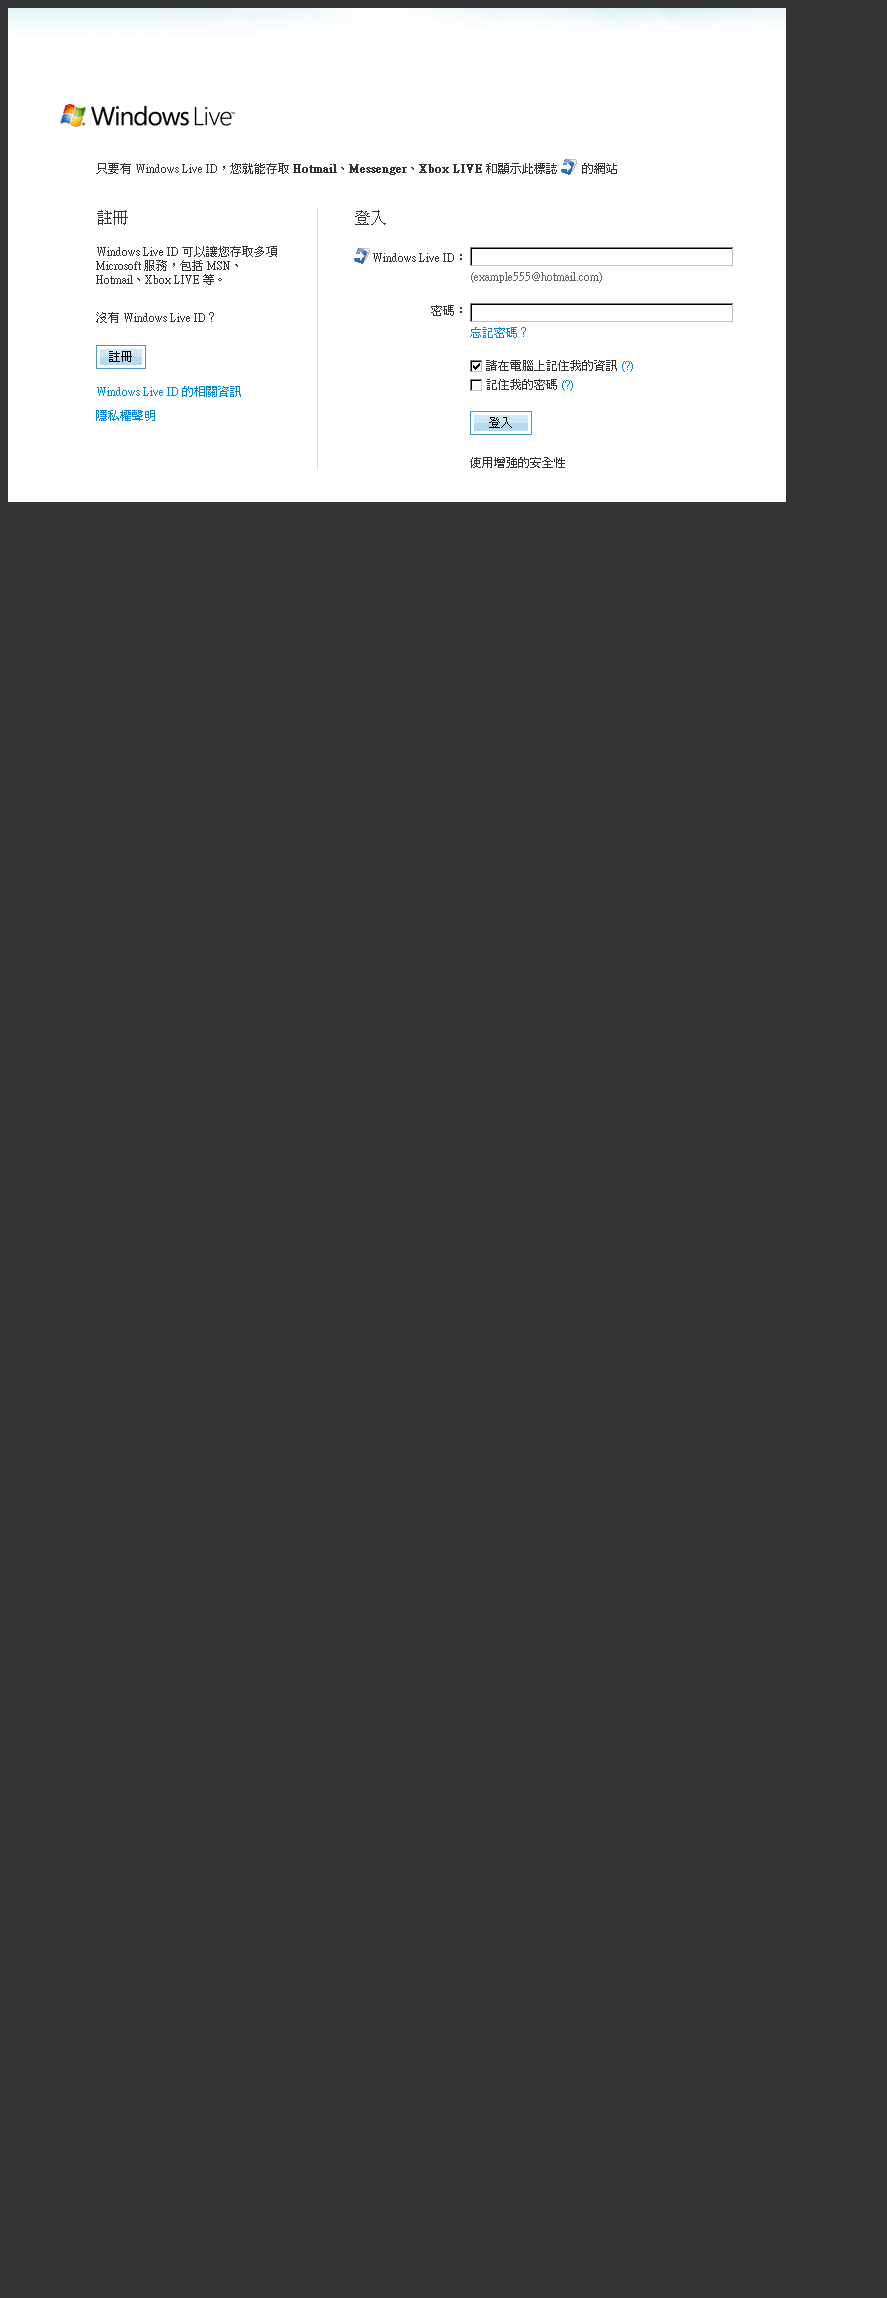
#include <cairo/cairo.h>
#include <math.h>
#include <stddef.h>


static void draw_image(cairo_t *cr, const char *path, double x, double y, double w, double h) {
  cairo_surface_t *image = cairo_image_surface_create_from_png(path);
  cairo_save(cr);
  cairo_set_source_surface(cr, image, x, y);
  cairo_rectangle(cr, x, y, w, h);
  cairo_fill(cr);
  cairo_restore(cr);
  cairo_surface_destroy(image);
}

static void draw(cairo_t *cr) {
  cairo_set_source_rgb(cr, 52 / 255.0, 52 / 255.0, 52 / 255.0);
  cairo_paint(cr);
  draw_image(cr, "images/1.png", 8, 8, 778, 494);
}

int main(void) {
  cairo_surface_t *surface = cairo_image_surface_create(CAIRO_FORMAT_RGB24, 887, 2298);
  cairo_t *cr = cairo_create(surface);
  cairo_font_options_t *options = cairo_font_options_create();
  cairo_font_options_set_hint_metrics(options, CAIRO_HINT_METRICS_OFF);
  cairo_font_options_set_hint_style(options, CAIRO_HINT_STYLE_NONE);
  cairo_set_font_options(cr, options);
  cairo_set_miter_limit(cr, 4);
  draw(cr);
  cairo_surface_write_to_png(surface, "out.png");
  cairo_font_options_destroy(options);
  cairo_destroy(cr);
  cairo_surface_destroy(surface);
  return 0;
}
